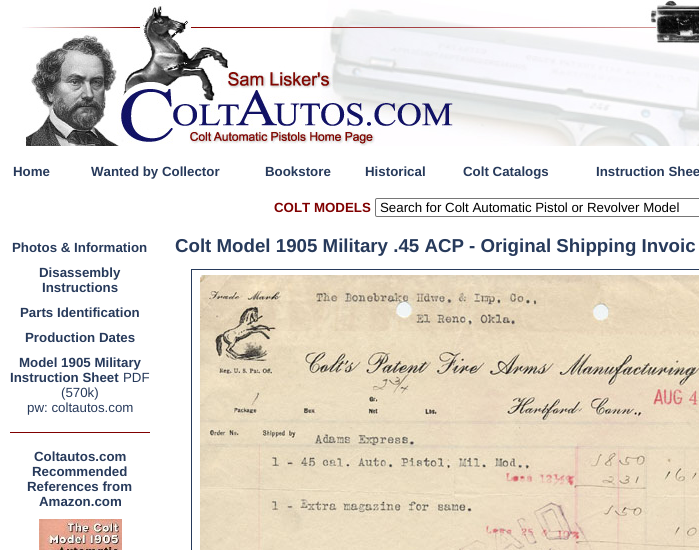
#include <cairo/cairo.h>
#include <math.h>
#include <stddef.h>


static void rounded_rect(cairo_t *cr, double x, double y, double w, double h, double r) {
  cairo_new_sub_path(cr);
  cairo_arc(cr, x + w - r, y + h - r, r, 0, M_PI / 2);
  cairo_arc(cr, x + r, y + h - r, r, M_PI / 2, M_PI);
  cairo_arc(cr, x + r, y + r, r, M_PI, 1.5 * M_PI);
  cairo_arc(cr, x + w - r, y + r, r, 1.5 * M_PI, 2 * M_PI);
  cairo_close_path(cr);
}

static void draw_image(cairo_t *cr, const char *path, double x, double y, double w, double h) {
  cairo_surface_t *image = cairo_image_surface_create_from_png(path);
  cairo_save(cr);
  cairo_set_source_surface(cr, image, x, y);
  cairo_rectangle(cr, x, y, w, h);
  cairo_fill(cr);
  cairo_restore(cr);
  cairo_surface_destroy(image);
}

static void draw(cairo_t *cr) {
  cairo_set_source_rgb(cr, 1, 1, 1);
  cairo_paint(cr);
  draw_image(cr, "images/1.png", 22, 0, 677, 146);
  rounded_rect(cr, 375.5, 198.5, 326, 18, 1.5);
  cairo_set_source_rgb(cr, 118 / 255.0, 118 / 255.0, 118 / 255.0);
  cairo_set_line_width(cr, 1);
  cairo_stroke(cr);
  cairo_set_source_rgb(cr, 128 / 255.0, 0, 0);
  cairo_rectangle(cr, 10, 432, 140, 1);
  cairo_fill(cr);
  draw_image(cr, "images/2.png", 39, 519, 83, 31);
  cairo_set_source_rgb(cr, 39 / 255.0, 58 / 255.0, 91 / 255.0);
  cairo_rectangle(cr, 191, 269, 508, 1);
  cairo_fill(cr);
  cairo_rectangle(cr, 191, 269, 1, 281);
  cairo_fill(cr);
  draw_image(cr, "images/3.png", 200, 275, 499, 275);
  cairo_select_font_face(cr, "Liberation Sans", CAIRO_FONT_SLANT_NORMAL, CAIRO_FONT_WEIGHT_BOLD);
  cairo_set_font_size(cr, 13.3);
  cairo_move_to(cr, 13, 176);
  cairo_show_text(cr, "Home");
  cairo_move_to(cr, 91, 176);
  cairo_show_text(cr, "Wanted by Collector");
  cairo_move_to(cr, 265, 176);
  cairo_show_text(cr, "Bookstore");
  cairo_move_to(cr, 365, 176);
  cairo_show_text(cr, "Historical");
  cairo_move_to(cr, 463, 176);
  cairo_show_text(cr, "Colt Catalogs");
  cairo_move_to(cr, 596, 176);
  cairo_show_text(cr, "Instruction Shee");
  cairo_set_source_rgb(cr, 128 / 255.0, 0, 0);
  cairo_move_to(cr, 274, 212);
  cairo_show_text(cr, "COLT MODELS");
  cairo_select_font_face(cr, "Liberation Sans", CAIRO_FONT_SLANT_NORMAL, CAIRO_FONT_WEIGHT_NORMAL);
  cairo_set_source_rgb(cr, 0, 0, 0);
  cairo_move_to(cr, 380, 212);
  cairo_show_text(cr, "Search for Colt Automatic Pistol or Revolver Model");
  cairo_select_font_face(cr, "Liberation Sans", CAIRO_FONT_SLANT_NORMAL, CAIRO_FONT_WEIGHT_BOLD);
  cairo_set_source_rgb(cr, 39 / 255.0, 58 / 255.0, 91 / 255.0);
  cairo_move_to(cr, 12, 252);
  cairo_show_text(cr, "Photos & Information");
  cairo_move_to(cr, 39, 277);
  cairo_show_text(cr, "Disassembly");
  cairo_move_to(cr, 42, 292);
  cairo_show_text(cr, "Instructions");
  cairo_move_to(cr, 20, 317);
  cairo_show_text(cr, "Parts Identification");
  cairo_move_to(cr, 25, 342);
  cairo_show_text(cr, "Production Dates");
  cairo_move_to(cr, 19, 367);
  cairo_show_text(cr, "Model 1905 Military");
  cairo_move_to(cr, 10, 382);
  cairo_show_text(cr, "Instruction Sheet");
  cairo_select_font_face(cr, "Liberation Sans", CAIRO_FONT_SLANT_NORMAL, CAIRO_FONT_WEIGHT_NORMAL);
  cairo_move_to(cr, 123, 382);
  cairo_show_text(cr, "PDF");
  cairo_move_to(cr, 61, 397);
  cairo_show_text(cr, "(570k)");
  cairo_move_to(cr, 27, 412);
  cairo_show_text(cr, "pw: coltautos.com");
  cairo_select_font_face(cr, "Liberation Sans", CAIRO_FONT_SLANT_NORMAL, CAIRO_FONT_WEIGHT_BOLD);
  cairo_move_to(cr, 34, 461);
  cairo_show_text(cr, "Coltautos.com");
  cairo_move_to(cr, 32, 476);
  cairo_show_text(cr, "Recommended");
  cairo_move_to(cr, 27, 491);
  cairo_show_text(cr, "References from");
  cairo_move_to(cr, 39, 506);
  cairo_show_text(cr, "Amazon.com");
  cairo_set_font_size(cr, 18.7);
  cairo_move_to(cr, 175, 252);
  cairo_show_text(cr, "Colt Model 1905 Military .45 ACP - Original Shipping Invoic");
}

int main(void) {
  cairo_surface_t *surface = cairo_image_surface_create(CAIRO_FORMAT_RGB24, 699, 550);
  cairo_t *cr = cairo_create(surface);
  cairo_font_options_t *options = cairo_font_options_create();
  cairo_font_options_set_hint_metrics(options, CAIRO_HINT_METRICS_OFF);
  cairo_font_options_set_hint_style(options, CAIRO_HINT_STYLE_NONE);
  cairo_set_font_options(cr, options);
  cairo_set_miter_limit(cr, 4);
  draw(cr);
  cairo_surface_write_to_png(surface, "out.png");
  cairo_font_options_destroy(options);
  cairo_destroy(cr);
  cairo_surface_destroy(surface);
  return 0;
}
